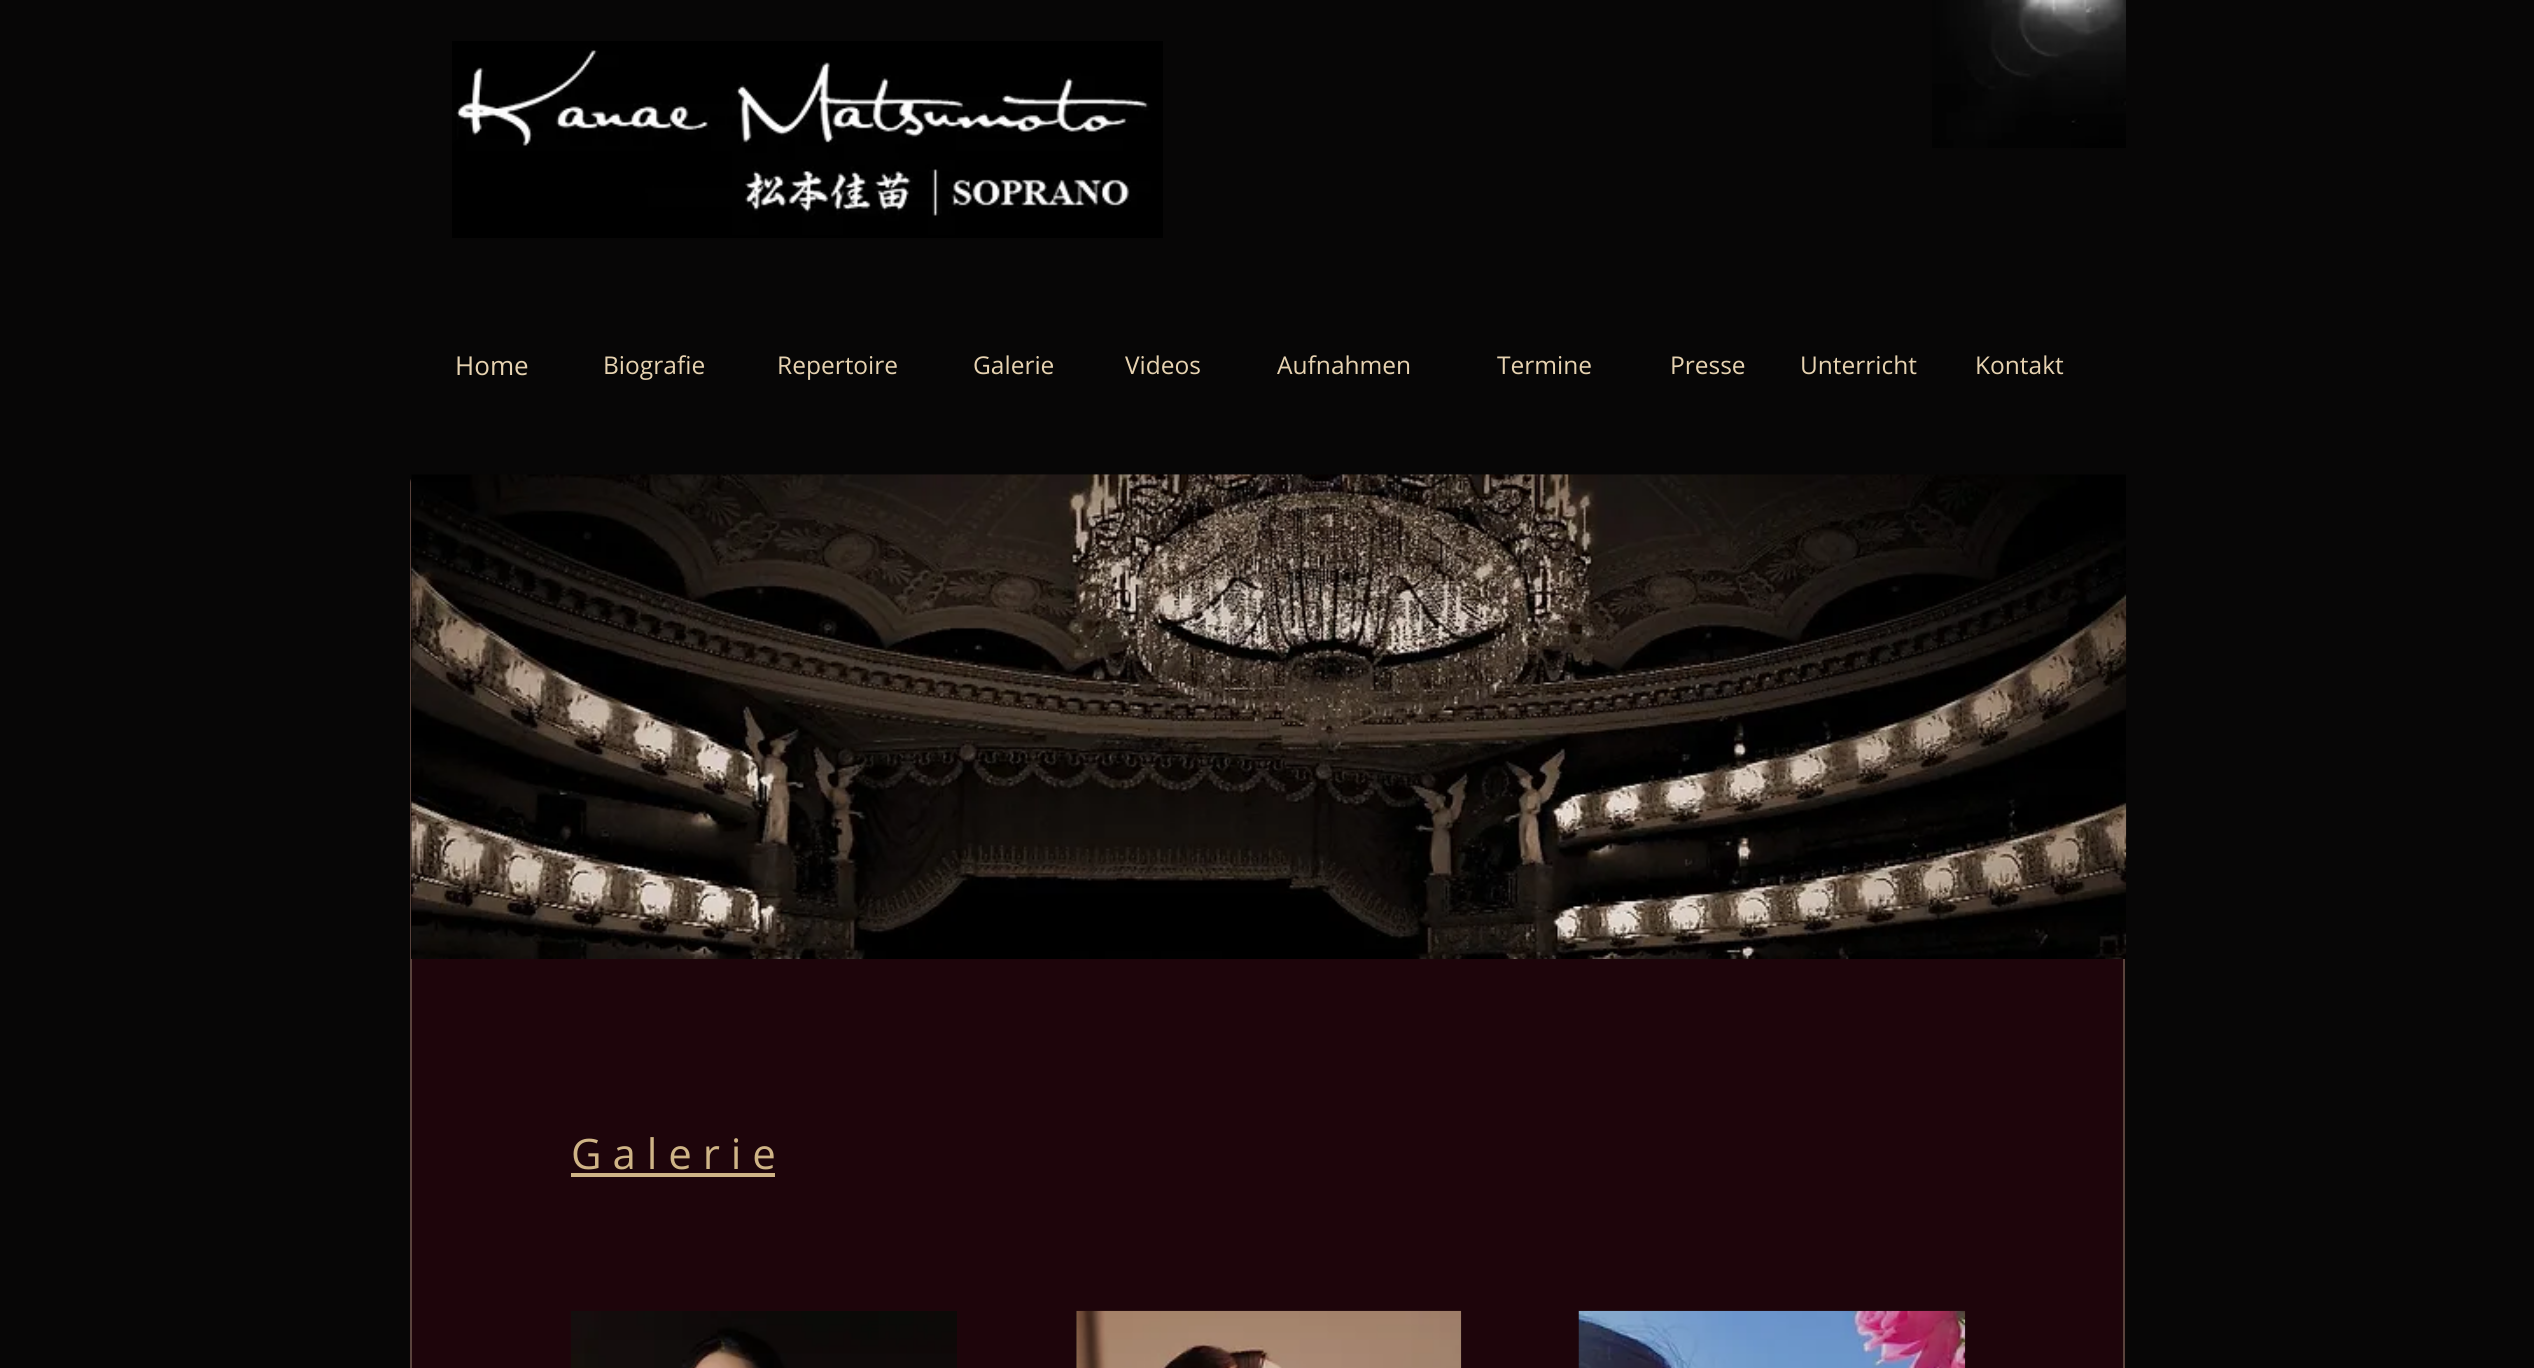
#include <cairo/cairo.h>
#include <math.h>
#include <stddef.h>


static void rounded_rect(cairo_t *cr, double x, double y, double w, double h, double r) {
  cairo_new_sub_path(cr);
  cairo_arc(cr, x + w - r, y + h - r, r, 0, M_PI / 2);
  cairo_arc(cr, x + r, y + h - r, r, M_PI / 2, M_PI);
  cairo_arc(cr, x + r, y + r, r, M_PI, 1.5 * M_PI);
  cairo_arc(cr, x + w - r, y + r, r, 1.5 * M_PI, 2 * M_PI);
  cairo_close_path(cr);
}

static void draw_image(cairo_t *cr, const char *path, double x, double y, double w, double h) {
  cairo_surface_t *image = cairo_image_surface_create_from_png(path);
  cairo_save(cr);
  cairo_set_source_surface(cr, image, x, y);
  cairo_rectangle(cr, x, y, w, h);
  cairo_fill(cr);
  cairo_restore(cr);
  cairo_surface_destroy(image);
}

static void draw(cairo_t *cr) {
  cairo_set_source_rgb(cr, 7 / 255.0, 6 / 255.0, 6 / 255.0);
  cairo_paint(cr);
  draw_image(cr, "images/1.png", 452, 41, 711, 197);
  draw_image(cr, "images/2.png", 1932, 0, 194, 148);
  cairo_set_source_rgb(cr, 30 / 255.0, 5 / 255.0, 11 / 255.0);
  rounded_rect(cr, 410, 474, 1715, 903, 9);
  cairo_fill(cr);
  rounded_rect(cr, 411, 475, 1713, 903, 8);
  cairo_set_source_rgba(cr, 231 / 255.0, 211 / 255.0, 177 / 255.0, 0.3);
  cairo_stroke(cr);
  cairo_set_source_rgb(cr, 7 / 255.0, 6 / 255.0, 6 / 255.0);
  cairo_rectangle(cr, 411, 474, 1714, 485);
  cairo_fill(cr);
  draw_image(cr, "images/3.png", 411, 474, 1716, 485);
  cairo_set_source_rgb(cr, 207 / 255.0, 180 / 255.0, 134 / 255.0);
  cairo_rectangle(cr, 571, 1173, 204, 4);
  cairo_fill(cr);
  draw_image(cr, "images/4.png", 571, 1311, 386, 57);
  cairo_set_source_rgb(cr, 7 / 255.0, 6 / 255.0, 6 / 255.0);
  cairo_rectangle(cr, 1076, 1311, 1, 57);
  cairo_fill(cr);
  draw_image(cr, "images/5.png", 1076, 1310, 386, 58);
  draw_image(cr, "images/6.png", 1578, 1310, 388, 58);
  cairo_select_font_face(cr, "Open Sans", CAIRO_FONT_SLANT_NORMAL, CAIRO_FONT_WEIGHT_NORMAL);
  cairo_set_font_size(cr, 26);
  cairo_set_source_rgb(cr, 231 / 255.0, 211 / 255.0, 177 / 255.0);
  cairo_move_to(cr, 455, 375);
  cairo_show_text(cr, "Home");
  cairo_set_font_size(cr, 24.5);
  cairo_move_to(cr, 603, 374);
  cairo_show_text(cr, "Biografie");
  cairo_move_to(cr, 777, 374);
  cairo_show_text(cr, "Repertoire");
  cairo_move_to(cr, 973, 374);
  cairo_show_text(cr, "Galerie");
  cairo_move_to(cr, 1125, 374);
  cairo_show_text(cr, "Videos");
  cairo_move_to(cr, 1277, 374);
  cairo_show_text(cr, "Aufnahmen");
  cairo_move_to(cr, 1497, 374);
  cairo_show_text(cr, "Termine");
  cairo_move_to(cr, 1670, 374);
  cairo_show_text(cr, "Presse");
  cairo_move_to(cr, 1800, 374);
  cairo_show_text(cr, "Unterricht");
  cairo_move_to(cr, 1975, 374);
  cairo_show_text(cr, "Kontakt");
  cairo_set_font_size(cr, 42);
  cairo_set_source_rgb(cr, 207 / 255.0, 180 / 255.0, 134 / 255.0);
  cairo_move_to(cr, 571, 1169);
  cairo_show_text(cr, "G a l e r i e");
}

int main(void) {
  cairo_surface_t *surface = cairo_image_surface_create(CAIRO_FORMAT_RGB24, 2534, 1368);
  cairo_t *cr = cairo_create(surface);
  cairo_font_options_t *options = cairo_font_options_create();
  cairo_font_options_set_hint_metrics(options, CAIRO_HINT_METRICS_OFF);
  cairo_font_options_set_hint_style(options, CAIRO_HINT_STYLE_NONE);
  cairo_set_font_options(cr, options);
  cairo_set_miter_limit(cr, 4);
  draw(cr);
  cairo_surface_write_to_png(surface, "out.png");
  cairo_font_options_destroy(options);
  cairo_destroy(cr);
  cairo_surface_destroy(surface);
  return 0;
}
